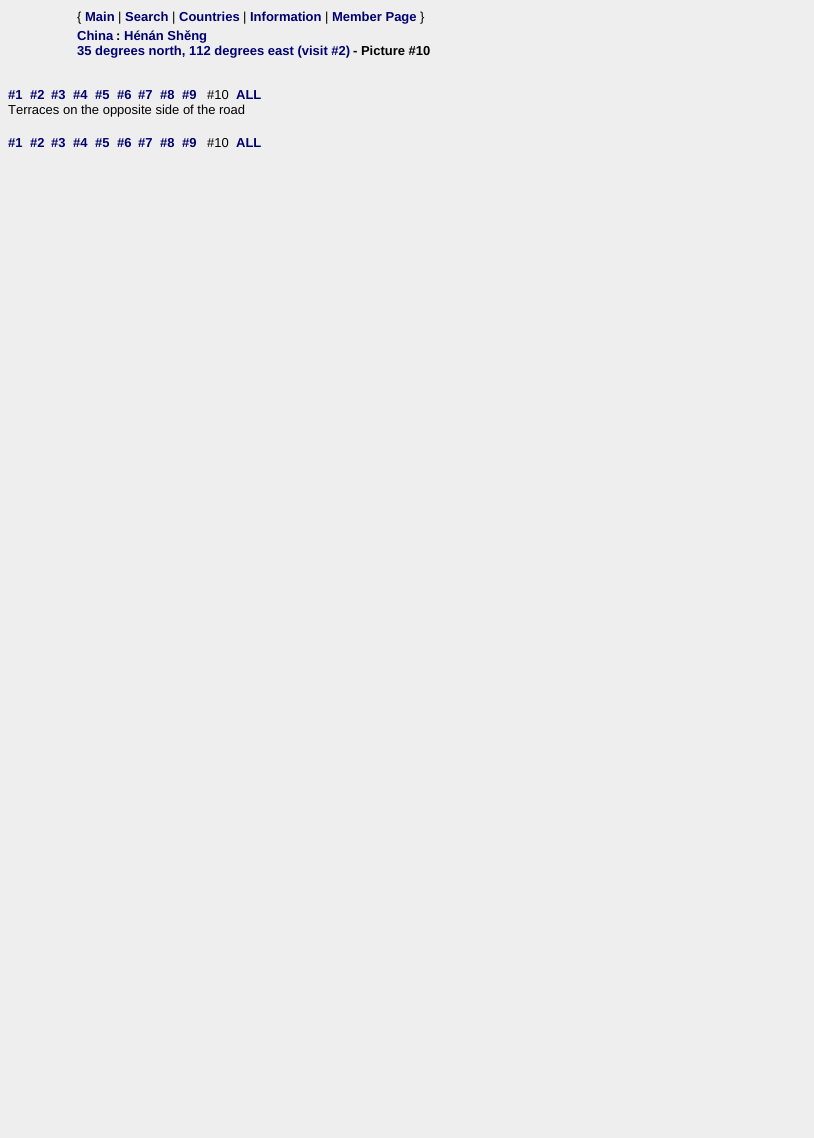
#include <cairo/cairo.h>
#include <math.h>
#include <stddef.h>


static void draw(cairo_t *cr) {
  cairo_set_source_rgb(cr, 238 / 255.0, 238 / 255.0, 238 / 255.0);
  cairo_paint(cr);
  cairo_select_font_face(cr, "Liberation Sans", CAIRO_FONT_SLANT_NORMAL, CAIRO_FONT_WEIGHT_NORMAL);
  cairo_set_font_size(cr, 13);
  cairo_set_source_rgb(cr, 0, 0, 0);
  cairo_move_to(cr, 77, 21);
  cairo_show_text(cr, "{");
  cairo_select_font_face(cr, "Liberation Sans", CAIRO_FONT_SLANT_NORMAL, CAIRO_FONT_WEIGHT_BOLD);
  cairo_set_source_rgb(cr, 0, 0, 112 / 255.0);
  cairo_move_to(cr, 85, 21);
  cairo_show_text(cr, "Main");
  cairo_select_font_face(cr, "Liberation Sans", CAIRO_FONT_SLANT_NORMAL, CAIRO_FONT_WEIGHT_NORMAL);
  cairo_set_source_rgb(cr, 0, 0, 0);
  cairo_move_to(cr, 118, 21);
  cairo_show_text(cr, "|");
  cairo_select_font_face(cr, "Liberation Sans", CAIRO_FONT_SLANT_NORMAL, CAIRO_FONT_WEIGHT_BOLD);
  cairo_set_source_rgb(cr, 0, 0, 112 / 255.0);
  cairo_move_to(cr, 125, 21);
  cairo_show_text(cr, "Search");
  cairo_select_font_face(cr, "Liberation Sans", CAIRO_FONT_SLANT_NORMAL, CAIRO_FONT_WEIGHT_NORMAL);
  cairo_set_source_rgb(cr, 0, 0, 0);
  cairo_move_to(cr, 172, 21);
  cairo_show_text(cr, "|");
  cairo_select_font_face(cr, "Liberation Sans", CAIRO_FONT_SLANT_NORMAL, CAIRO_FONT_WEIGHT_BOLD);
  cairo_set_source_rgb(cr, 0, 0, 112 / 255.0);
  cairo_move_to(cr, 179, 21);
  cairo_show_text(cr, "Countries");
  cairo_select_font_face(cr, "Liberation Sans", CAIRO_FONT_SLANT_NORMAL, CAIRO_FONT_WEIGHT_NORMAL);
  cairo_set_source_rgb(cr, 0, 0, 0);
  cairo_move_to(cr, 243, 21);
  cairo_show_text(cr, "|");
  cairo_select_font_face(cr, "Liberation Sans", CAIRO_FONT_SLANT_NORMAL, CAIRO_FONT_WEIGHT_BOLD);
  cairo_set_source_rgb(cr, 0, 0, 112 / 255.0);
  cairo_move_to(cr, 250, 21);
  cairo_show_text(cr, "Information");
  cairo_select_font_face(cr, "Liberation Sans", CAIRO_FONT_SLANT_NORMAL, CAIRO_FONT_WEIGHT_NORMAL);
  cairo_set_source_rgb(cr, 0, 0, 0);
  cairo_move_to(cr, 325, 21);
  cairo_show_text(cr, "|");
  cairo_select_font_face(cr, "Liberation Sans", CAIRO_FONT_SLANT_NORMAL, CAIRO_FONT_WEIGHT_BOLD);
  cairo_set_source_rgb(cr, 0, 0, 112 / 255.0);
  cairo_move_to(cr, 332, 21);
  cairo_show_text(cr, "Member Page");
  cairo_select_font_face(cr, "Liberation Sans", CAIRO_FONT_SLANT_NORMAL, CAIRO_FONT_WEIGHT_NORMAL);
  cairo_set_source_rgb(cr, 0, 0, 0);
  cairo_move_to(cr, 420, 21);
  cairo_show_text(cr, "}");
  cairo_select_font_face(cr, "Liberation Sans", CAIRO_FONT_SLANT_NORMAL, CAIRO_FONT_WEIGHT_BOLD);
  cairo_set_source_rgb(cr, 0, 0, 112 / 255.0);
  cairo_move_to(cr, 77, 40);
  cairo_show_text(cr, "China");
  cairo_set_source_rgb(cr, 0, 0, 0);
  cairo_move_to(cr, 116, 40);
  cairo_show_text(cr, ":");
  cairo_set_source_rgb(cr, 0, 0, 112 / 255.0);
  cairo_move_to(cr, 124, 40);
  cairo_show_text(cr, "Hénán Shěng");
  cairo_move_to(cr, 77, 55);
  cairo_show_text(cr, "35 degrees north, 112 degrees east (visit #2)");
  cairo_set_source_rgb(cr, 0, 0, 0);
  cairo_move_to(cr, 353, 55);
  cairo_show_text(cr, "- Picture #10");
  cairo_set_source_rgb(cr, 0, 0, 112 / 255.0);
  cairo_move_to(cr, 8, 99);
  cairo_show_text(cr, "#1");
  cairo_move_to(cr, 30, 99);
  cairo_show_text(cr, "#2");
  cairo_move_to(cr, 51, 99);
  cairo_show_text(cr, "#3");
  cairo_move_to(cr, 73, 99);
  cairo_show_text(cr, "#4");
  cairo_move_to(cr, 95, 99);
  cairo_show_text(cr, "#5");
  cairo_move_to(cr, 117, 99);
  cairo_show_text(cr, "#6");
  cairo_move_to(cr, 138, 99);
  cairo_show_text(cr, "#7");
  cairo_move_to(cr, 160, 99);
  cairo_show_text(cr, "#8");
  cairo_move_to(cr, 182, 99);
  cairo_show_text(cr, "#9");
  cairo_select_font_face(cr, "Liberation Sans", CAIRO_FONT_SLANT_NORMAL, CAIRO_FONT_WEIGHT_NORMAL);
  cairo_set_source_rgb(cr, 0, 0, 0);
  cairo_move_to(cr, 207, 99);
  cairo_show_text(cr, "#10");
  cairo_select_font_face(cr, "Liberation Sans", CAIRO_FONT_SLANT_NORMAL, CAIRO_FONT_WEIGHT_BOLD);
  cairo_set_source_rgb(cr, 0, 0, 112 / 255.0);
  cairo_move_to(cr, 236, 99);
  cairo_show_text(cr, "ALL");
  cairo_select_font_face(cr, "Liberation Sans", CAIRO_FONT_SLANT_NORMAL, CAIRO_FONT_WEIGHT_NORMAL);
  cairo_set_source_rgb(cr, 0, 0, 0);
  cairo_move_to(cr, 8, 114);
  cairo_show_text(cr, "Terraces on the opposite side of the road");
  cairo_select_font_face(cr, "Liberation Sans", CAIRO_FONT_SLANT_NORMAL, CAIRO_FONT_WEIGHT_BOLD);
  cairo_set_source_rgb(cr, 0, 0, 112 / 255.0);
  cairo_move_to(cr, 8, 147);
  cairo_show_text(cr, "#1");
  cairo_move_to(cr, 30, 147);
  cairo_show_text(cr, "#2");
  cairo_move_to(cr, 51, 147);
  cairo_show_text(cr, "#3");
  cairo_move_to(cr, 73, 147);
  cairo_show_text(cr, "#4");
  cairo_move_to(cr, 95, 147);
  cairo_show_text(cr, "#5");
  cairo_move_to(cr, 117, 147);
  cairo_show_text(cr, "#6");
  cairo_move_to(cr, 138, 147);
  cairo_show_text(cr, "#7");
  cairo_move_to(cr, 160, 147);
  cairo_show_text(cr, "#8");
  cairo_move_to(cr, 182, 147);
  cairo_show_text(cr, "#9");
  cairo_select_font_face(cr, "Liberation Sans", CAIRO_FONT_SLANT_NORMAL, CAIRO_FONT_WEIGHT_NORMAL);
  cairo_set_source_rgb(cr, 0, 0, 0);
  cairo_move_to(cr, 207, 147);
  cairo_show_text(cr, "#10");
  cairo_select_font_face(cr, "Liberation Sans", CAIRO_FONT_SLANT_NORMAL, CAIRO_FONT_WEIGHT_BOLD);
  cairo_set_source_rgb(cr, 0, 0, 112 / 255.0);
  cairo_move_to(cr, 236, 147);
  cairo_show_text(cr, "ALL");
}

int main(void) {
  cairo_surface_t *surface = cairo_image_surface_create(CAIRO_FORMAT_RGB24, 814, 1138);
  cairo_t *cr = cairo_create(surface);
  cairo_font_options_t *options = cairo_font_options_create();
  cairo_font_options_set_hint_metrics(options, CAIRO_HINT_METRICS_OFF);
  cairo_font_options_set_hint_style(options, CAIRO_HINT_STYLE_NONE);
  cairo_set_font_options(cr, options);
  cairo_set_miter_limit(cr, 4);
  draw(cr);
  cairo_surface_write_to_png(surface, "out.png");
  cairo_font_options_destroy(options);
  cairo_destroy(cr);
  cairo_surface_destroy(surface);
  return 0;
}
